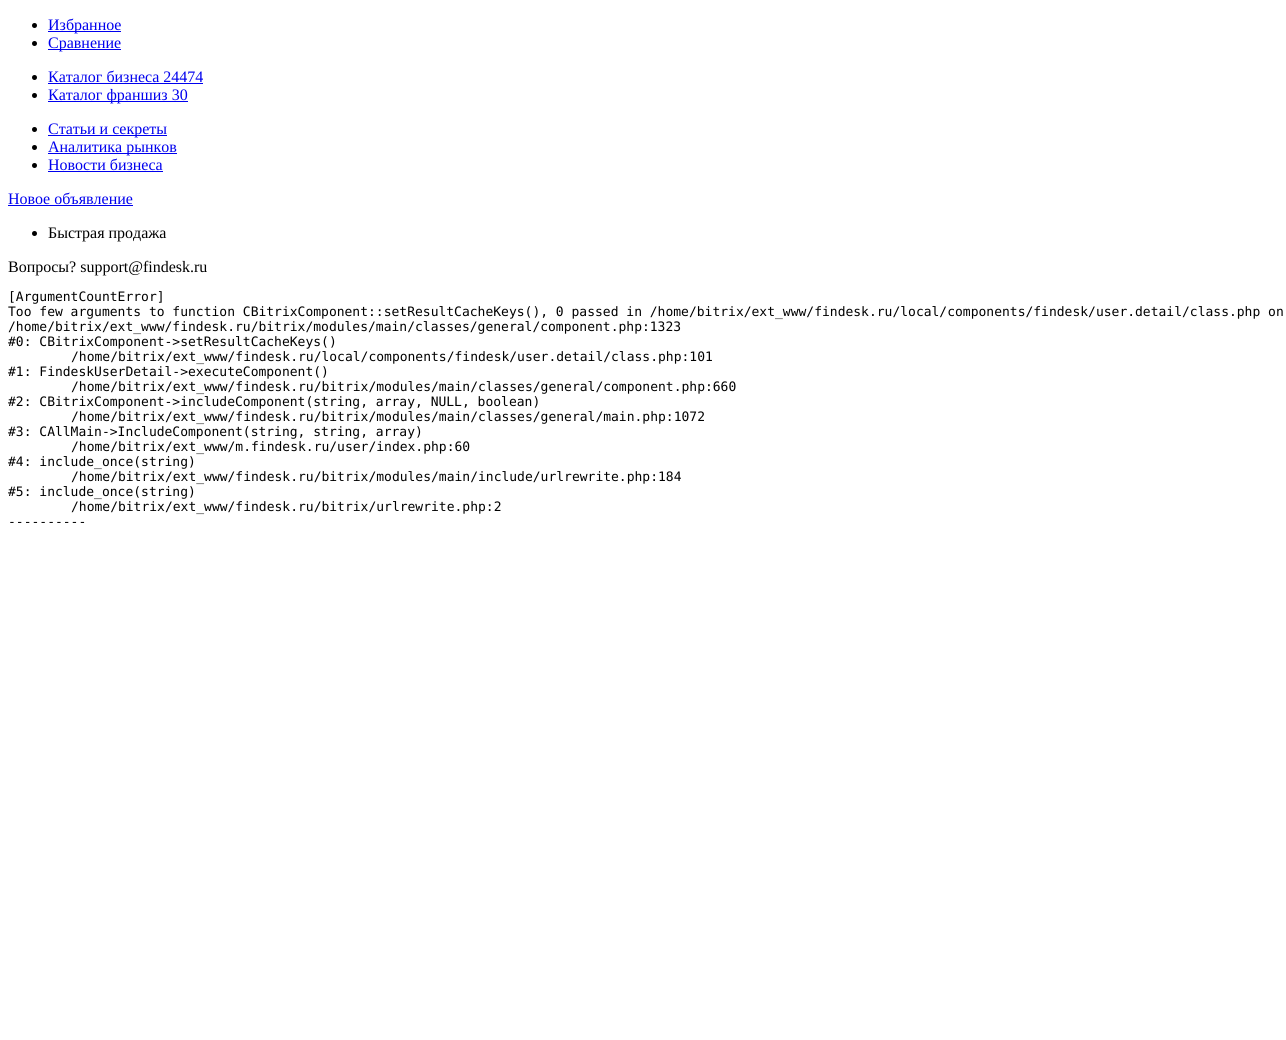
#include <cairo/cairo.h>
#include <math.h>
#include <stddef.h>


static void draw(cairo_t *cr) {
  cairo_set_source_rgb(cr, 1, 1, 1);
  cairo_paint(cr);
  cairo_set_source_rgb(cr, 0, 0, 0);
  cairo_arc(cr, 34.5, 25.5, 2.5, 0, 2 * M_PI);
  cairo_fill(cr);
  cairo_set_source_rgb(cr, 0, 0, 238 / 255.0);
  cairo_rectangle(cr, 48, 31, 73, 1);
  cairo_fill(cr);
  cairo_set_source_rgb(cr, 0, 0, 0);
  cairo_arc(cr, 34.5, 43.5, 2.5, 0, 2 * M_PI);
  cairo_fill(cr);
  cairo_set_source_rgb(cr, 0, 0, 238 / 255.0);
  cairo_rectangle(cr, 48, 49, 73, 1);
  cairo_fill(cr);
  cairo_set_source_rgb(cr, 0, 0, 0);
  cairo_arc(cr, 34.5, 77.5, 2.5, 0, 2 * M_PI);
  cairo_fill(cr);
  cairo_set_source_rgb(cr, 0, 0, 238 / 255.0);
  cairo_rectangle(cr, 48, 83, 155, 1);
  cairo_fill(cr);
  cairo_set_source_rgb(cr, 0, 0, 0);
  cairo_arc(cr, 34.5, 95.5, 2.5, 0, 2 * M_PI);
  cairo_fill(cr);
  cairo_set_source_rgb(cr, 0, 0, 238 / 255.0);
  cairo_rectangle(cr, 48, 101, 140, 1);
  cairo_fill(cr);
  cairo_set_source_rgb(cr, 0, 0, 0);
  cairo_arc(cr, 34.5, 129.5, 2.5, 0, 2 * M_PI);
  cairo_fill(cr);
  cairo_set_source_rgb(cr, 0, 0, 238 / 255.0);
  cairo_rectangle(cr, 48, 135, 119, 1);
  cairo_fill(cr);
  cairo_set_source_rgb(cr, 0, 0, 0);
  cairo_arc(cr, 34.5, 147.5, 2.5, 0, 2 * M_PI);
  cairo_fill(cr);
  cairo_set_source_rgb(cr, 0, 0, 238 / 255.0);
  cairo_rectangle(cr, 48, 153, 129, 1);
  cairo_fill(cr);
  cairo_set_source_rgb(cr, 0, 0, 0);
  cairo_arc(cr, 34.5, 165.5, 2.5, 0, 2 * M_PI);
  cairo_fill(cr);
  cairo_set_source_rgb(cr, 0, 0, 238 / 255.0);
  cairo_rectangle(cr, 48, 171, 115, 1);
  cairo_fill(cr);
  cairo_rectangle(cr, 8, 205, 125, 1);
  cairo_fill(cr);
  cairo_set_source_rgb(cr, 0, 0, 0);
  cairo_arc(cr, 34.5, 233.5, 2.5, 0, 2 * M_PI);
  cairo_fill(cr);
  cairo_select_font_face(cr, "Liberation Serif", CAIRO_FONT_SLANT_NORMAL, CAIRO_FONT_WEIGHT_NORMAL);
  cairo_set_font_size(cr, 16);
  cairo_set_source_rgb(cr, 0, 0, 238 / 255.0);
  cairo_move_to(cr, 48, 30);
  cairo_show_text(cr, "Избранное");
  cairo_move_to(cr, 48, 48);
  cairo_show_text(cr, "Сравнение");
  cairo_move_to(cr, 48, 82);
  cairo_show_text(cr, "Каталог бизнеса 24474");
  cairo_move_to(cr, 48, 100);
  cairo_show_text(cr, "Каталог франшиз 30");
  cairo_move_to(cr, 48, 134);
  cairo_show_text(cr, "Статьи и секреты");
  cairo_move_to(cr, 48, 152);
  cairo_show_text(cr, "Аналитика рынков");
  cairo_move_to(cr, 48, 170);
  cairo_show_text(cr, "Новости бизнеса");
  cairo_move_to(cr, 8, 204);
  cairo_show_text(cr, "Новое объявление");
  cairo_set_source_rgb(cr, 0, 0, 0);
  cairo_move_to(cr, 48, 238);
  cairo_show_text(cr, "Быстрая продажа");
  cairo_move_to(cr, 8, 272);
  cairo_show_text(cr, "Вопросы? support@findesk.ru");
  cairo_select_font_face(cr, "DejaVu Sans Mono", CAIRO_FONT_SLANT_NORMAL, CAIRO_FONT_WEIGHT_NORMAL);
  cairo_set_font_size(cr, 13);
  cairo_move_to(cr, 8, 301);
  cairo_show_text(cr, "[ArgumentCountError]");
  cairo_move_to(cr, 8, 316);
  cairo_show_text(cr, "Too few arguments to function CBitrixComponent::setResultCacheKeys(), 0 passed in /home/bitrix/ext_www/findesk.ru/local/components/findesk/user.detail/class.php on");
  cairo_move_to(cr, 8, 331);
  cairo_show_text(cr, "/home/bitrix/ext_www/findesk.ru/bitrix/modules/main/classes/general/component.php:1323");
  cairo_move_to(cr, 8, 346);
  cairo_show_text(cr, "#0: CBitrixComponent->setResultCacheKeys()");
  cairo_move_to(cr, 71, 361);
  cairo_show_text(cr, "/home/bitrix/ext_www/findesk.ru/local/components/findesk/user.detail/class.php:101");
  cairo_move_to(cr, 8, 376);
  cairo_show_text(cr, "#1: FindeskUserDetail->executeComponent()");
  cairo_move_to(cr, 71, 391);
  cairo_show_text(cr, "/home/bitrix/ext_www/findesk.ru/bitrix/modules/main/classes/general/component.php:660");
  cairo_move_to(cr, 8, 406);
  cairo_show_text(cr, "#2: CBitrixComponent->includeComponent(string, array, NULL, boolean)");
  cairo_move_to(cr, 71, 421);
  cairo_show_text(cr, "/home/bitrix/ext_www/findesk.ru/bitrix/modules/main/classes/general/main.php:1072");
  cairo_move_to(cr, 8, 436);
  cairo_show_text(cr, "#3: CAllMain->IncludeComponent(string, string, array)");
  cairo_move_to(cr, 71, 451);
  cairo_show_text(cr, "/home/bitrix/ext_www/m.findesk.ru/user/index.php:60");
  cairo_move_to(cr, 8, 466);
  cairo_show_text(cr, "#4: include_once(string)");
  cairo_move_to(cr, 71, 481);
  cairo_show_text(cr, "/home/bitrix/ext_www/findesk.ru/bitrix/modules/main/include/urlrewrite.php:184");
  cairo_move_to(cr, 8, 496);
  cairo_show_text(cr, "#5: include_once(string)");
  cairo_move_to(cr, 71, 511);
  cairo_show_text(cr, "/home/bitrix/ext_www/findesk.ru/bitrix/urlrewrite.php:2");
  cairo_move_to(cr, 8, 526);
  cairo_show_text(cr, "----------");
}

int main(void) {
  cairo_surface_t *surface = cairo_image_surface_create(CAIRO_FORMAT_RGB24, 1286, 1040);
  cairo_t *cr = cairo_create(surface);
  cairo_font_options_t *options = cairo_font_options_create();
  cairo_font_options_set_hint_metrics(options, CAIRO_HINT_METRICS_OFF);
  cairo_font_options_set_hint_style(options, CAIRO_HINT_STYLE_NONE);
  cairo_set_font_options(cr, options);
  cairo_set_miter_limit(cr, 4);
  draw(cr);
  cairo_surface_write_to_png(surface, "out.png");
  cairo_font_options_destroy(options);
  cairo_destroy(cr);
  cairo_surface_destroy(surface);
  return 0;
}
